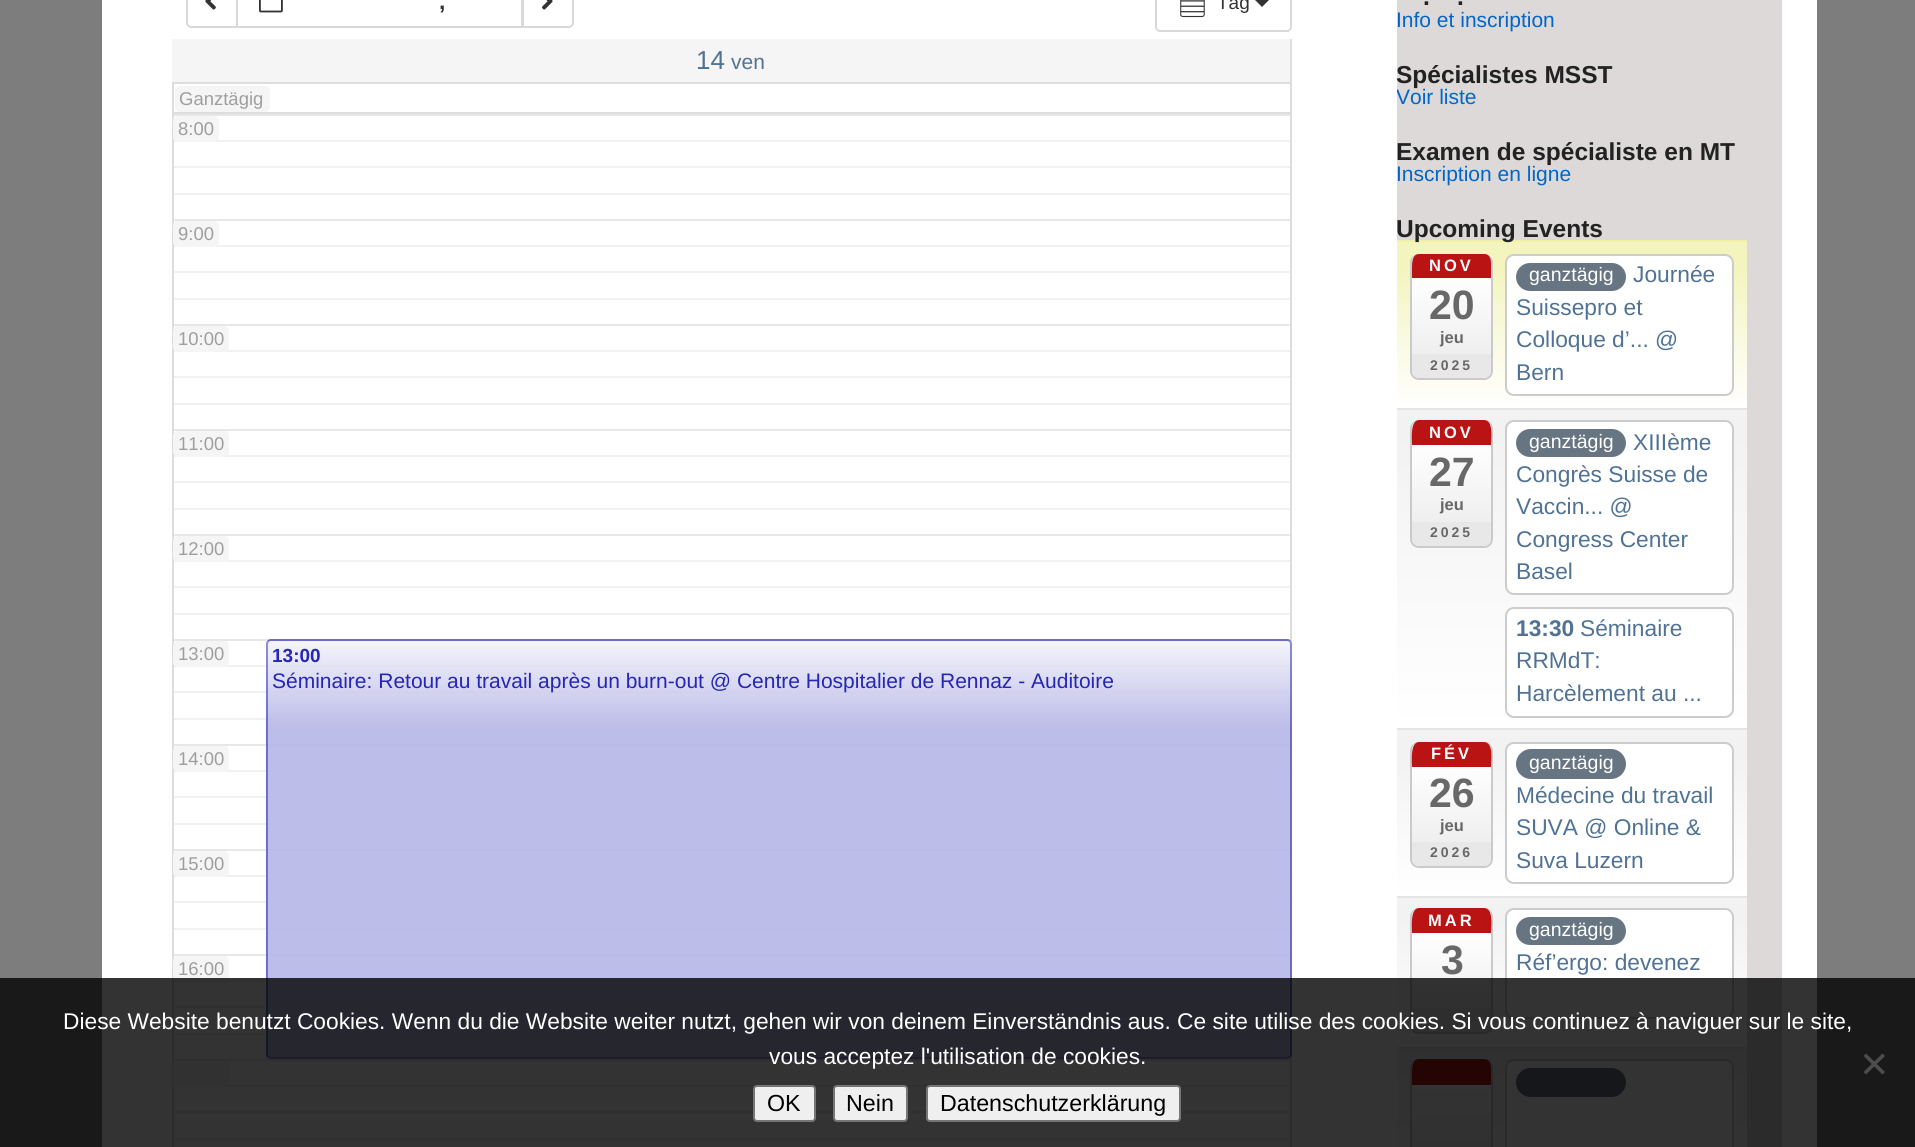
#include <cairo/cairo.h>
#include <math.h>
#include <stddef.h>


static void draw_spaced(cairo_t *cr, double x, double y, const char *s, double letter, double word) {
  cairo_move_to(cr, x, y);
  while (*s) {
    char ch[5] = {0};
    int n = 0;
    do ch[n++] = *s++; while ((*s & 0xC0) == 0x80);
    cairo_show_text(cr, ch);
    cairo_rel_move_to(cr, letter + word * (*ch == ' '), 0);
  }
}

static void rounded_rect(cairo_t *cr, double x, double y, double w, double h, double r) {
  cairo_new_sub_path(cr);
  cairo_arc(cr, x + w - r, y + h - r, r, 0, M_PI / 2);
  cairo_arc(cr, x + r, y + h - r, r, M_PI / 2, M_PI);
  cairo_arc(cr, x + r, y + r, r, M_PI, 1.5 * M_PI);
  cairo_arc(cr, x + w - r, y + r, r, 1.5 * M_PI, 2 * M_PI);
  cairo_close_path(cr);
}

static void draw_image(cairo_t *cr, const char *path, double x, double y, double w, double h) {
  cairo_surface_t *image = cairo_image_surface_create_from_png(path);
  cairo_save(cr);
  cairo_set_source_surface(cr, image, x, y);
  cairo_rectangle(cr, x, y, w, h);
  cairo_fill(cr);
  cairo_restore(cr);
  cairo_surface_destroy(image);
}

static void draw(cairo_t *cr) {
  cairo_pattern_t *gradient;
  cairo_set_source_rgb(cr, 125 / 255.0, 125 / 255.0, 125 / 255.0);
  cairo_paint(cr);
  cairo_set_source_rgb(cr, 1, 1, 1);
  cairo_rectangle(cr, 102, 0, 1715, 1147);
  cairo_fill(cr);
  cairo_set_source_rgb(cr, 241 / 255.0, 241 / 255.0, 241 / 255.0);
  cairo_rectangle(cr, 172, 1138, 1120, 2);
  cairo_fill(cr);
  cairo_rectangle(cr, 172, 1111, 1120, 2);
  cairo_fill(cr);
  cairo_rectangle(cr, 172, 1085, 1120, 2);
  cairo_fill(cr);
  cairo_set_source_rgb(cr, 231 / 255.0, 231 / 255.0, 231 / 255.0);
  cairo_rectangle(cr, 172, 1059, 1120, 2);
  cairo_fill(cr);
  cairo_set_source_rgb(cr, 241 / 255.0, 241 / 255.0, 241 / 255.0);
  cairo_rectangle(cr, 172, 1033, 1120, 2);
  cairo_fill(cr);
  cairo_rectangle(cr, 172, 1006, 1120, 2);
  cairo_fill(cr);
  cairo_rectangle(cr, 172, 980, 1120, 2);
  cairo_fill(cr);
  cairo_set_source_rgb(cr, 231 / 255.0, 231 / 255.0, 231 / 255.0);
  cairo_rectangle(cr, 172, 954, 1120, 2);
  cairo_fill(cr);
  cairo_set_source_rgb(cr, 241 / 255.0, 241 / 255.0, 241 / 255.0);
  cairo_rectangle(cr, 172, 928, 1120, 2);
  cairo_fill(cr);
  cairo_rectangle(cr, 172, 901, 1120, 2);
  cairo_fill(cr);
  cairo_rectangle(cr, 172, 875, 1120, 2);
  cairo_fill(cr);
  cairo_set_source_rgb(cr, 231 / 255.0, 231 / 255.0, 231 / 255.0);
  cairo_rectangle(cr, 172, 849, 1120, 2);
  cairo_fill(cr);
  cairo_set_source_rgb(cr, 241 / 255.0, 241 / 255.0, 241 / 255.0);
  cairo_rectangle(cr, 172, 823, 1120, 2);
  cairo_fill(cr);
  cairo_rectangle(cr, 172, 796, 1120, 2);
  cairo_fill(cr);
  cairo_rectangle(cr, 172, 770, 1120, 2);
  cairo_fill(cr);
  cairo_set_source_rgb(cr, 231 / 255.0, 231 / 255.0, 231 / 255.0);
  cairo_rectangle(cr, 172, 744, 1120, 2);
  cairo_fill(cr);
  cairo_set_source_rgb(cr, 241 / 255.0, 241 / 255.0, 241 / 255.0);
  cairo_rectangle(cr, 172, 718, 1120, 2);
  cairo_fill(cr);
  cairo_rectangle(cr, 172, 691, 1120, 2);
  cairo_fill(cr);
  cairo_rectangle(cr, 172, 665, 1120, 2);
  cairo_fill(cr);
  cairo_set_source_rgb(cr, 231 / 255.0, 231 / 255.0, 231 / 255.0);
  cairo_rectangle(cr, 172, 639, 1120, 2);
  cairo_fill(cr);
  cairo_set_source_rgb(cr, 241 / 255.0, 241 / 255.0, 241 / 255.0);
  cairo_rectangle(cr, 172, 613, 1120, 2);
  cairo_fill(cr);
  cairo_rectangle(cr, 172, 586, 1120, 2);
  cairo_fill(cr);
  cairo_rectangle(cr, 172, 560, 1120, 2);
  cairo_fill(cr);
  cairo_set_source_rgb(cr, 231 / 255.0, 231 / 255.0, 231 / 255.0);
  cairo_rectangle(cr, 172, 534, 1120, 2);
  cairo_fill(cr);
  cairo_set_source_rgb(cr, 241 / 255.0, 241 / 255.0, 241 / 255.0);
  cairo_rectangle(cr, 172, 508, 1120, 2);
  cairo_fill(cr);
  cairo_rectangle(cr, 172, 481, 1120, 2);
  cairo_fill(cr);
  cairo_rectangle(cr, 172, 455, 1120, 2);
  cairo_fill(cr);
  cairo_set_source_rgb(cr, 231 / 255.0, 231 / 255.0, 231 / 255.0);
  cairo_rectangle(cr, 172, 429, 1120, 2);
  cairo_fill(cr);
  cairo_set_source_rgb(cr, 241 / 255.0, 241 / 255.0, 241 / 255.0);
  cairo_rectangle(cr, 172, 403, 1120, 2);
  cairo_fill(cr);
  cairo_rectangle(cr, 172, 376, 1120, 2);
  cairo_fill(cr);
  cairo_rectangle(cr, 172, 350, 1120, 2);
  cairo_fill(cr);
  cairo_set_source_rgb(cr, 231 / 255.0, 231 / 255.0, 231 / 255.0);
  cairo_rectangle(cr, 172, 324, 1120, 2);
  cairo_fill(cr);
  cairo_set_source_rgb(cr, 241 / 255.0, 241 / 255.0, 241 / 255.0);
  cairo_rectangle(cr, 172, 298, 1120, 2);
  cairo_fill(cr);
  cairo_rectangle(cr, 172, 271, 1120, 2);
  cairo_fill(cr);
  cairo_rectangle(cr, 172, 245, 1120, 2);
  cairo_fill(cr);
  cairo_set_source_rgb(cr, 231 / 255.0, 231 / 255.0, 231 / 255.0);
  cairo_rectangle(cr, 172, 219, 1120, 2);
  cairo_fill(cr);
  cairo_set_source_rgb(cr, 241 / 255.0, 241 / 255.0, 241 / 255.0);
  cairo_rectangle(cr, 172, 193, 1120, 2);
  cairo_fill(cr);
  cairo_rectangle(cr, 172, 166, 1120, 2);
  cairo_fill(cr);
  cairo_rectangle(cr, 172, 140, 1120, 2);
  cairo_fill(cr);
  cairo_set_source_rgb(cr, 231 / 255.0, 231 / 255.0, 231 / 255.0);
  cairo_rectangle(cr, 172, 114, 1120, 2);
  cairo_fill(cr);
  cairo_new_path(cr);
  cairo_move_to(cr, 191, -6);
  cairo_line_to(cr, 237, -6);
  cairo_line_to(cr, 237, 27);
  cairo_line_to(cr, 191, 27);
  cairo_curve_to(cr, 189, 27, 187, 25, 187, 23);
  cairo_line_to(cr, 187, -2);
  cairo_curve_to(cr, 187, -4, 189, -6, 191, -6);
  cairo_close_path(cr);
  cairo_set_source_rgb(cr, 217 / 255.0, 217 / 255.0, 217 / 255.0);
  cairo_stroke(cr);
  draw_image(cr, "images/1.png", 205, 0, 11, 10);
  cairo_rectangle(cr, 237, -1, 285, 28);
  cairo_stroke(cr);
  draw_image(cr, "images/2.png", 259, 0, 24, 13);
  cairo_set_source_rgb(cr, 1, 1, 1);
  cairo_new_path(cr);
  cairo_move_to(cr, 523, -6);
  cairo_line_to(cr, 569, -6);
  cairo_curve_to(cr, 571, -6, 573, -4, 573, -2);
  cairo_line_to(cr, 573, 23);
  cairo_curve_to(cr, 573, 25, 571, 27, 569, 27);
  cairo_line_to(cr, 523, 27);
  cairo_close_path(cr);
  cairo_fill_preserve(cr);
  cairo_set_source_rgb(cr, 217 / 255.0, 217 / 255.0, 217 / 255.0);
  cairo_stroke(cr);
  draw_image(cr, "images/3.png", 542, 0, 11, 10);
  rounded_rect(cr, 1156, -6, 135, 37, 4);
  cairo_stroke(cr);
  draw_image(cr, "images/4.png", 1180, 0, 25, 18);
  cairo_set_source_rgb(cr, 51 / 255.0, 51 / 255.0, 51 / 255.0);
  cairo_new_path(cr);
  cairo_move_to(cr, 1255, 0);
  cairo_line_to(cr, 1269, 0);
  cairo_line_to(cr, 1262, 7);
  cairo_close_path(cr);
  cairo_fill(cr);
  cairo_set_source_rgb(cr, 221 / 255.0, 221 / 255.0, 221 / 255.0);
  cairo_rectangle(cr, 1290, 39, 2, 1108);
  cairo_fill(cr);
  cairo_rectangle(cr, 172, 84, 2, 1063);
  cairo_fill(cr);
  cairo_set_source_rgb(cr, 245 / 255.0, 245 / 255.0, 245 / 255.0);
  cairo_rectangle(cr, 172, 39, 1118, 43);
  cairo_fill(cr);
  cairo_set_source_rgb(cr, 221 / 255.0, 221 / 255.0, 221 / 255.0);
  cairo_rectangle(cr, 172, 82, 1120, 2);
  cairo_fill(cr);
  cairo_rectangle(cr, 172, 112, 1120, 2);
  cairo_fill(cr);
  cairo_set_source_rgb(cr, 245 / 255.0, 245 / 255.0, 245 / 255.0);
  rounded_rect(cr, 175, 86, 95, 26, 5);
  cairo_fill(cr);
  rounded_rect(cr, 173, 116, 46, 26, 5);
  cairo_fill(cr);
  rounded_rect(cr, 173, 221, 46, 26, 5);
  cairo_fill(cr);
  rounded_rect(cr, 173, 326, 56, 26, 5);
  cairo_fill(cr);
  rounded_rect(cr, 173, 431, 56, 26, 5);
  cairo_fill(cr);
  rounded_rect(cr, 173, 536, 56, 26, 5);
  cairo_fill(cr);
  rounded_rect(cr, 173, 641, 56, 26, 5);
  cairo_fill(cr);
  rounded_rect(cr, 173, 746, 56, 26, 5);
  cairo_fill(cr);
  rounded_rect(cr, 173, 851, 56, 26, 5);
  cairo_fill(cr);
  rounded_rect(cr, 173, 956, 56, 26, 5);
  cairo_fill(cr);
  rounded_rect(cr, 173, 1061, 56, 26, 5);
  cairo_fill(cr);
  cairo_set_source_rgba(cr, 1, 1, 1, 0.85);
  rounded_rect(cr, 266, 639, 1026, 420, 5);
  cairo_fill(cr);
  cairo_save(cr);
  rounded_rect(cr, 266, 639, 1026, 420, 5);
  cairo_clip(cr);
  gradient = cairo_pattern_create_linear(779, 224, 779, 641);
  cairo_pattern_add_color_stop_rgba(gradient, 0, 0, 0, 170 / 255.0, 0.04);
  cairo_pattern_add_color_stop_rgba(gradient, 0.21, 0, 0, 170 / 255.0, 0.26);
  cairo_set_source(cr, gradient);
  cairo_pattern_destroy(gradient);
  cairo_rectangle(cr, 266, 639, 1026, 2);
  cairo_fill(cr);
  gradient = cairo_pattern_create_linear(779, 640, 779, 1057);
  cairo_pattern_add_color_stop_rgba(gradient, 0, 0, 0, 170 / 255.0, 0.04);
  cairo_pattern_add_color_stop_rgba(gradient, 0.21, 0, 0, 170 / 255.0, 0.26);
  cairo_set_source(cr, gradient);
  cairo_pattern_destroy(gradient);
  cairo_rectangle(cr, 266, 641, 1026, 416);
  cairo_fill(cr);
  cairo_restore(cr);
  gradient = cairo_pattern_create_linear(779, 1057, 779, 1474);
  cairo_pattern_add_color_stop_rgba(gradient, 0, 0, 0, 170 / 255.0, 0.04);
  cairo_pattern_add_color_stop_rgba(gradient, 0.21, 0, 0, 170 / 255.0, 0.26);
  cairo_set_source(cr, gradient);
  cairo_pattern_destroy(gradient);
  cairo_rectangle(cr, 266, 1057, 1026, 2);
  cairo_fill(cr);
  rounded_rect(cr, 267, 640, 1024, 418, 4);
  cairo_set_source_rgba(cr, 0, 0, 170 / 255.0, 0.42);
  cairo_stroke(cr);
  cairo_set_source_rgb(cr, 220 / 255.0, 217 / 255.0, 216 / 255.0);
  cairo_rectangle(cr, 1397, 0, 385, 1147);
  cairo_fill(cr);
  gradient = cairo_pattern_create_linear(1572, 242, 1572, 408);
  cairo_pattern_add_color_stop_rgba(gradient, 0, 244 / 255.0, 244 / 255.0, 191 / 255.0, 1);
  cairo_pattern_add_color_stop_rgba(gradient, 0.14, 244 / 255.0, 244 / 255.0, 191 / 255.0, 1);
  cairo_pattern_add_color_stop_rgba(gradient, 1, 1, 1, 1, 1);
  cairo_set_source(cr, gradient);
  cairo_pattern_destroy(gradient);
  cairo_rectangle(cr, 1397, 242, 350, 166);
  cairo_fill(cr);
  cairo_set_source_rgb(cr, 240 / 255.0, 240 / 255.0, 169 / 255.0);
  cairo_rectangle(cr, 1397, 240, 350, 2);
  cairo_fill(cr);
  cairo_save(cr);
  rounded_rect(cr, 1411, 254, 82, 126, 9);
  cairo_clip(cr);
  gradient = cairo_pattern_create_linear(1452, 254, 1452, 378);
  cairo_pattern_add_color_stop_rgba(gradient, 0, 1, 1, 1, 1);
  cairo_pattern_add_color_stop_rgba(gradient, 0.16, 1, 1, 1, 1);
  cairo_pattern_add_color_stop_rgba(gradient, 1, 234 / 255.0, 234 / 255.0, 234 / 255.0, 1);
  cairo_set_source(cr, gradient);
  cairo_pattern_destroy(gradient);
  cairo_rectangle(cr, 1412, 254, 79, 124);
  cairo_fill(cr);
  cairo_restore(cr);
  cairo_set_source_rgb(cr, 202 / 255.0, 202 / 255.0, 202 / 255.0);
  cairo_set_fill_rule(cr, CAIRO_FILL_RULE_EVEN_ODD);
  cairo_new_path(cr);
  cairo_move_to(cr, 1419, 254);
  cairo_line_to(cr, 1484, 254);
  cairo_curve_to(cr, 1489, 254, 1493, 258, 1493, 262);
  cairo_line_to(cr, 1493, 371);
  cairo_curve_to(cr, 1493, 376, 1489, 380, 1484, 380);
  cairo_line_to(cr, 1419, 380);
  cairo_curve_to(cr, 1414, 380, 1410, 376, 1410, 371);
  cairo_line_to(cr, 1410, 262);
  cairo_curve_to(cr, 1410, 258, 1414, 254, 1419, 254);
  cairo_close_path(cr);
  cairo_move_to(cr, 1419, 254);
  cairo_line_to(cr, 1484, 254);
  cairo_curve_to(cr, 1488, 254, 1491, 258, 1491, 262);
  cairo_line_to(cr, 1491, 371);
  cairo_curve_to(cr, 1491, 375, 1488, 378, 1484, 378);
  cairo_line_to(cr, 1419, 378);
  cairo_curve_to(cr, 1415, 378, 1412, 375, 1412, 371);
  cairo_line_to(cr, 1412, 262);
  cairo_curve_to(cr, 1412, 258, 1415, 254, 1419, 254);
  cairo_close_path(cr);
  cairo_fill(cr);
  cairo_set_source_rgb(cr, 186 / 255.0, 19 / 255.0, 19 / 255.0);
  cairo_set_fill_rule(cr, CAIRO_FILL_RULE_WINDING);
  cairo_new_path(cr);
  cairo_move_to(cr, 1419, 254);
  cairo_line_to(cr, 1485, 254);
  cairo_curve_to(cr, 1492, 255, 1491, 263, 1491, 268);
  cairo_line_to(cr, 1491, 278);
  cairo_line_to(cr, 1412, 278);
  cairo_line_to(cr, 1412, 268);
  cairo_curve_to(cr, 1412, 263, 1412, 254, 1419, 254);
  cairo_close_path(cr);
  cairo_fill(cr);
  cairo_set_source_rgb(cr, 232 / 255.0, 232 / 255.0, 232 / 255.0);
  cairo_new_path(cr);
  cairo_move_to(cr, 1419, 378);
  cairo_line_to(cr, 1484, 378);
  cairo_curve_to(cr, 1488, 378, 1491, 375, 1491, 371);
  cairo_line_to(cr, 1491, 354);
  cairo_line_to(cr, 1412, 354);
  cairo_line_to(cr, 1412, 371);
  cairo_curve_to(cr, 1412, 375, 1415, 378, 1419, 378);
  cairo_close_path(cr);
  cairo_fill(cr);
  cairo_set_source_rgb(cr, 1, 1, 1);
  rounded_rect(cr, 1506, 255, 227, 140, 8);
  cairo_fill_preserve(cr);
  cairo_set_source_rgb(cr, 204 / 255.0, 204 / 255.0, 204 / 255.0);
  cairo_stroke(cr);
  cairo_set_source_rgb(cr, 103 / 255.0, 117 / 255.0, 131 / 255.0);
  rounded_rect(cr, 1516, 263, 110, 28, 14);
  cairo_fill(cr);
  gradient = cairo_pattern_create_linear(1572, 410, 1572, 728);
  cairo_pattern_add_color_stop_rgba(gradient, 0, 242 / 255.0, 242 / 255.0, 242 / 255.0, 1);
  cairo_pattern_add_color_stop_rgba(gradient, 0.07, 242 / 255.0, 242 / 255.0, 242 / 255.0, 1);
  cairo_pattern_add_color_stop_rgba(gradient, 1, 1, 1, 1, 1);
  cairo_set_source(cr, gradient);
  cairo_pattern_destroy(gradient);
  cairo_rectangle(cr, 1397, 410, 350, 318);
  cairo_fill(cr);
  cairo_set_source_rgb(cr, 229 / 255.0, 229 / 255.0, 229 / 255.0);
  cairo_rectangle(cr, 1397, 408, 350, 2);
  cairo_fill(cr);
  cairo_save(cr);
  rounded_rect(cr, 1411, 420, 82, 128, 9);
  cairo_clip(cr);
  gradient = cairo_pattern_create_linear(1452, 420, 1452, 546);
  cairo_pattern_add_color_stop_rgba(gradient, 0, 1, 1, 1, 1);
  cairo_pattern_add_color_stop_rgba(gradient, 0.16, 1, 1, 1, 1);
  cairo_pattern_add_color_stop_rgba(gradient, 1, 234 / 255.0, 234 / 255.0, 234 / 255.0, 1);
  cairo_set_source(cr, gradient);
  cairo_pattern_destroy(gradient);
  cairo_rectangle(cr, 1412, 420, 79, 126);
  cairo_fill(cr);
  cairo_restore(cr);
  cairo_set_source_rgb(cr, 202 / 255.0, 202 / 255.0, 202 / 255.0);
  cairo_set_fill_rule(cr, CAIRO_FILL_RULE_EVEN_ODD);
  cairo_new_path(cr);
  cairo_move_to(cr, 1419, 420);
  cairo_line_to(cr, 1484, 420);
  cairo_curve_to(cr, 1489, 420, 1493, 424, 1493, 429);
  cairo_line_to(cr, 1493, 539);
  cairo_curve_to(cr, 1493, 544, 1489, 548, 1484, 548);
  cairo_line_to(cr, 1419, 548);
  cairo_curve_to(cr, 1414, 548, 1410, 544, 1410, 539);
  cairo_line_to(cr, 1410, 429);
  cairo_curve_to(cr, 1410, 424, 1414, 420, 1419, 420);
  cairo_close_path(cr);
  cairo_move_to(cr, 1419, 420);
  cairo_line_to(cr, 1484, 420);
  cairo_curve_to(cr, 1488, 420, 1491, 424, 1491, 429);
  cairo_line_to(cr, 1491, 539);
  cairo_curve_to(cr, 1491, 543, 1488, 546, 1484, 546);
  cairo_line_to(cr, 1419, 546);
  cairo_curve_to(cr, 1415, 546, 1412, 543, 1412, 539);
  cairo_line_to(cr, 1412, 429);
  cairo_curve_to(cr, 1412, 424, 1415, 420, 1419, 420);
  cairo_close_path(cr);
  cairo_fill(cr);
  cairo_set_source_rgb(cr, 186 / 255.0, 19 / 255.0, 19 / 255.0);
  cairo_set_fill_rule(cr, CAIRO_FILL_RULE_WINDING);
  cairo_new_path(cr);
  cairo_move_to(cr, 1419, 420);
  cairo_curve_to(cr, 1410, 420, 1412, 439, 1412, 445);
  cairo_line_to(cr, 1491, 445);
  cairo_curve_to(cr, 1491, 439, 1494, 420, 1484, 420);
  cairo_close_path(cr);
  cairo_fill(cr);
  cairo_set_source_rgb(cr, 232 / 255.0, 232 / 255.0, 232 / 255.0);
  cairo_new_path(cr);
  cairo_move_to(cr, 1419, 546);
  cairo_line_to(cr, 1484, 546);
  cairo_curve_to(cr, 1488, 546, 1491, 543, 1491, 539);
  cairo_line_to(cr, 1491, 522);
  cairo_line_to(cr, 1412, 522);
  cairo_line_to(cr, 1412, 539);
  cairo_curve_to(cr, 1412, 543, 1415, 546, 1419, 546);
  cairo_close_path(cr);
  cairo_fill(cr);
  cairo_set_source_rgb(cr, 1, 1, 1);
  rounded_rect(cr, 1506, 421, 227, 173, 8);
  cairo_fill_preserve(cr);
  cairo_set_source_rgb(cr, 204 / 255.0, 204 / 255.0, 204 / 255.0);
  cairo_stroke(cr);
  cairo_set_source_rgb(cr, 103 / 255.0, 117 / 255.0, 131 / 255.0);
  rounded_rect(cr, 1516, 429, 110, 28, 14);
  cairo_fill(cr);
  cairo_set_source_rgb(cr, 1, 1, 1);
  rounded_rect(cr, 1506, 608, 227, 109, 8);
  cairo_fill_preserve(cr);
  cairo_set_source_rgb(cr, 204 / 255.0, 204 / 255.0, 204 / 255.0);
  cairo_stroke(cr);
  gradient = cairo_pattern_create_linear(1572, 730, 1572, 896);
  cairo_pattern_add_color_stop_rgba(gradient, 0, 242 / 255.0, 242 / 255.0, 242 / 255.0, 1);
  cairo_pattern_add_color_stop_rgba(gradient, 0.14, 242 / 255.0, 242 / 255.0, 242 / 255.0, 1);
  cairo_pattern_add_color_stop_rgba(gradient, 1, 1, 1, 1, 1);
  cairo_set_source(cr, gradient);
  cairo_pattern_destroy(gradient);
  cairo_rectangle(cr, 1397, 730, 350, 166);
  cairo_fill(cr);
  cairo_set_source_rgb(cr, 229 / 255.0, 229 / 255.0, 229 / 255.0);
  cairo_rectangle(cr, 1397, 728, 350, 2);
  cairo_fill(cr);
  cairo_save(cr);
  rounded_rect(cr, 1411, 742, 82, 126, 9);
  cairo_clip(cr);
  gradient = cairo_pattern_create_linear(1452, 742, 1452, 866);
  cairo_pattern_add_color_stop_rgba(gradient, 0, 1, 1, 1, 1);
  cairo_pattern_add_color_stop_rgba(gradient, 0.16, 1, 1, 1, 1);
  cairo_pattern_add_color_stop_rgba(gradient, 1, 234 / 255.0, 234 / 255.0, 234 / 255.0, 1);
  cairo_set_source(cr, gradient);
  cairo_pattern_destroy(gradient);
  cairo_rectangle(cr, 1412, 742, 79, 124);
  cairo_fill(cr);
  cairo_restore(cr);
  cairo_set_source_rgb(cr, 202 / 255.0, 202 / 255.0, 202 / 255.0);
  cairo_set_fill_rule(cr, CAIRO_FILL_RULE_EVEN_ODD);
  cairo_new_path(cr);
  cairo_move_to(cr, 1419, 742);
  cairo_line_to(cr, 1484, 742);
  cairo_curve_to(cr, 1489, 742, 1493, 746, 1493, 751);
  cairo_line_to(cr, 1493, 859);
  cairo_curve_to(cr, 1493, 864, 1489, 868, 1484, 868);
  cairo_line_to(cr, 1419, 868);
  cairo_curve_to(cr, 1414, 868, 1410, 864, 1410, 859);
  cairo_line_to(cr, 1410, 751);
  cairo_curve_to(cr, 1410, 746, 1414, 742, 1419, 742);
  cairo_close_path(cr);
  cairo_move_to(cr, 1419, 742);
  cairo_line_to(cr, 1484, 742);
  cairo_curve_to(cr, 1488, 742, 1491, 746, 1491, 751);
  cairo_line_to(cr, 1491, 859);
  cairo_curve_to(cr, 1491, 863, 1488, 866, 1484, 866);
  cairo_line_to(cr, 1419, 866);
  cairo_curve_to(cr, 1415, 866, 1412, 863, 1412, 859);
  cairo_line_to(cr, 1412, 751);
  cairo_curve_to(cr, 1412, 746, 1415, 742, 1419, 742);
  cairo_close_path(cr);
  cairo_fill(cr);
  cairo_set_source_rgb(cr, 186 / 255.0, 19 / 255.0, 19 / 255.0);
  cairo_set_fill_rule(cr, CAIRO_FILL_RULE_WINDING);
  cairo_new_path(cr);
  cairo_move_to(cr, 1419, 742);
  cairo_curve_to(cr, 1410, 742, 1412, 761, 1412, 767);
  cairo_line_to(cr, 1491, 767);
  cairo_curve_to(cr, 1491, 761, 1494, 742, 1484, 742);
  cairo_close_path(cr);
  cairo_fill(cr);
  cairo_set_source_rgb(cr, 232 / 255.0, 232 / 255.0, 232 / 255.0);
  cairo_new_path(cr);
  cairo_move_to(cr, 1417, 866);
  cairo_curve_to(cr, 1414, 865, 1412, 862, 1412, 859);
  cairo_line_to(cr, 1412, 842);
  cairo_line_to(cr, 1491, 842);
  cairo_line_to(cr, 1491, 859);
  cairo_curve_to(cr, 1491, 862, 1489, 865, 1486, 866);
  cairo_close_path(cr);
  cairo_fill(cr);
  cairo_set_source_rgb(cr, 1, 1, 1);
  rounded_rect(cr, 1506, 743, 227, 140, 8);
  cairo_fill_preserve(cr);
  cairo_set_source_rgb(cr, 204 / 255.0, 204 / 255.0, 204 / 255.0);
  cairo_stroke(cr);
  cairo_set_source_rgb(cr, 103 / 255.0, 117 / 255.0, 131 / 255.0);
  rounded_rect(cr, 1516, 749, 110, 30, 15);
  cairo_fill(cr);
  gradient = cairo_pattern_create_linear(1572, 898, 1572, 1047);
  cairo_pattern_add_color_stop_rgba(gradient, 0, 242 / 255.0, 242 / 255.0, 242 / 255.0, 1);
  cairo_pattern_add_color_stop_rgba(gradient, 0.15, 242 / 255.0, 242 / 255.0, 242 / 255.0, 1);
  cairo_pattern_add_color_stop_rgba(gradient, 1, 1, 1, 1, 1);
  cairo_set_source(cr, gradient);
  cairo_pattern_destroy(gradient);
  cairo_rectangle(cr, 1397, 898, 350, 149);
  cairo_fill(cr);
  cairo_set_source_rgb(cr, 229 / 255.0, 229 / 255.0, 229 / 255.0);
  cairo_rectangle(cr, 1397, 896, 350, 2);
  cairo_fill(cr);
  cairo_save(cr);
  rounded_rect(cr, 1411, 908, 82, 126, 9);
  cairo_clip(cr);
  gradient = cairo_pattern_create_linear(1452, 908, 1452, 1033);
  cairo_pattern_add_color_stop_rgba(gradient, 0, 1, 1, 1, 1);
  cairo_pattern_add_color_stop_rgba(gradient, 0.16, 1, 1, 1, 1);
  cairo_pattern_add_color_stop_rgba(gradient, 1, 234 / 255.0, 234 / 255.0, 234 / 255.0, 1);
  cairo_set_source(cr, gradient);
  cairo_pattern_destroy(gradient);
  cairo_rectangle(cr, 1412, 908, 79, 125);
  cairo_fill(cr);
  cairo_restore(cr);
  cairo_set_source_rgb(cr, 202 / 255.0, 202 / 255.0, 202 / 255.0);
  cairo_set_fill_rule(cr, CAIRO_FILL_RULE_EVEN_ODD);
  cairo_new_path(cr);
  cairo_move_to(cr, 1419, 908);
  cairo_line_to(cr, 1484, 908);
  cairo_curve_to(cr, 1489, 908, 1493, 912, 1493, 917);
  cairo_line_to(cr, 1493, 1026);
  cairo_curve_to(cr, 1493, 1030, 1489, 1034, 1484, 1034);
  cairo_line_to(cr, 1419, 1034);
  cairo_curve_to(cr, 1414, 1034, 1410, 1030, 1410, 1026);
  cairo_line_to(cr, 1410, 917);
  cairo_curve_to(cr, 1410, 912, 1414, 908, 1419, 908);
  cairo_close_path(cr);
  cairo_move_to(cr, 1419, 908);
  cairo_line_to(cr, 1484, 908);
  cairo_curve_to(cr, 1488, 908, 1491, 912, 1491, 917);
  cairo_line_to(cr, 1491, 1026);
  cairo_curve_to(cr, 1491, 1029, 1488, 1032, 1484, 1032);
  cairo_line_to(cr, 1419, 1032);
  cairo_curve_to(cr, 1415, 1032, 1412, 1029, 1412, 1026);
  cairo_line_to(cr, 1412, 917);
  cairo_curve_to(cr, 1412, 912, 1415, 908, 1419, 908);
  cairo_close_path(cr);
  cairo_fill(cr);
  cairo_set_source_rgb(cr, 186 / 255.0, 19 / 255.0, 19 / 255.0);
  cairo_set_fill_rule(cr, CAIRO_FILL_RULE_WINDING);
  cairo_new_path(cr);
  cairo_move_to(cr, 1419, 908);
  cairo_curve_to(cr, 1410, 908, 1412, 927, 1412, 933);
  cairo_line_to(cr, 1491, 933);
  cairo_curve_to(cr, 1491, 927, 1494, 908, 1484, 908);
  cairo_close_path(cr);
  cairo_fill(cr);
  cairo_set_source_rgb(cr, 232 / 255.0, 232 / 255.0, 232 / 255.0);
  cairo_new_path(cr);
  cairo_move_to(cr, 1491, 1026);
  cairo_line_to(cr, 1491, 1008);
  cairo_line_to(cr, 1412, 1008);
  cairo_line_to(cr, 1412, 1026);
  cairo_curve_to(cr, 1412, 1029, 1415, 1032, 1419, 1032);
  cairo_line_to(cr, 1484, 1032);
  cairo_curve_to(cr, 1488, 1032, 1491, 1029, 1491, 1026);
  cairo_close_path(cr);
  cairo_fill(cr);
  cairo_set_source_rgb(cr, 1, 1, 1);
  rounded_rect(cr, 1506, 909, 227, 109, 8);
  cairo_fill_preserve(cr);
  cairo_set_source_rgb(cr, 204 / 255.0, 204 / 255.0, 204 / 255.0);
  cairo_stroke(cr);
  cairo_set_source_rgb(cr, 103 / 255.0, 117 / 255.0, 131 / 255.0);
  rounded_rect(cr, 1516, 917, 110, 28, 14);
  cairo_fill(cr);
  gradient = cairo_pattern_create_linear(1572, 1048, 1572, 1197);
  cairo_pattern_add_color_stop_rgba(gradient, 0, 242 / 255.0, 242 / 255.0, 242 / 255.0, 1);
  cairo_pattern_add_color_stop_rgba(gradient, 0.15, 242 / 255.0, 242 / 255.0, 242 / 255.0, 1);
  cairo_pattern_add_color_stop_rgba(gradient, 1, 1, 1, 1, 1);
  cairo_set_source(cr, gradient);
  cairo_pattern_destroy(gradient);
  cairo_rectangle(cr, 1397, 1049, 350, 98);
  cairo_fill(cr);
  cairo_set_source_rgb(cr, 229 / 255.0, 229 / 255.0, 229 / 255.0);
  cairo_rectangle(cr, 1397, 1047, 350, 2);
  cairo_fill(cr);
  cairo_save(cr);
  rounded_rect(cr, 1411, 1059, 82, 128, 9);
  cairo_clip(cr);
  gradient = cairo_pattern_create_linear(1452, 1059, 1452, 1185);
  cairo_pattern_add_color_stop_rgba(gradient, 0, 1, 1, 1, 1);
  cairo_pattern_add_color_stop_rgba(gradient, 0.16, 1, 1, 1, 1);
  cairo_pattern_add_color_stop_rgba(gradient, 1, 234 / 255.0, 234 / 255.0, 234 / 255.0, 1);
  cairo_set_source(cr, gradient);
  cairo_pattern_destroy(gradient);
  cairo_rectangle(cr, 1412, 1059, 79, 88);
  cairo_fill(cr);
  cairo_restore(cr);
  cairo_set_source_rgb(cr, 202 / 255.0, 202 / 255.0, 202 / 255.0);
  cairo_set_fill_rule(cr, CAIRO_FILL_RULE_EVEN_ODD);
  cairo_new_path(cr);
  cairo_move_to(cr, 1419, 1059);
  cairo_line_to(cr, 1484, 1059);
  cairo_curve_to(cr, 1489, 1059, 1493, 1063, 1493, 1068);
  cairo_line_to(cr, 1493, 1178);
  cairo_curve_to(cr, 1493, 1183, 1489, 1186, 1484, 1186);
  cairo_line_to(cr, 1419, 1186);
  cairo_curve_to(cr, 1414, 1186, 1410, 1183, 1410, 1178);
  cairo_line_to(cr, 1410, 1068);
  cairo_curve_to(cr, 1410, 1063, 1414, 1059, 1419, 1059);
  cairo_close_path(cr);
  cairo_move_to(cr, 1419, 1059);
  cairo_line_to(cr, 1484, 1059);
  cairo_curve_to(cr, 1488, 1059, 1491, 1063, 1491, 1068);
  cairo_line_to(cr, 1491, 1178);
  cairo_curve_to(cr, 1491, 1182, 1488, 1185, 1484, 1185);
  cairo_line_to(cr, 1419, 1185);
  cairo_curve_to(cr, 1415, 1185, 1412, 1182, 1412, 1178);
  cairo_line_to(cr, 1412, 1068);
  cairo_curve_to(cr, 1412, 1063, 1415, 1059, 1419, 1059);
  cairo_close_path(cr);
  cairo_fill(cr);
  cairo_set_source_rgb(cr, 186 / 255.0, 19 / 255.0, 19 / 255.0);
  cairo_set_fill_rule(cr, CAIRO_FILL_RULE_WINDING);
  cairo_new_path(cr);
  cairo_move_to(cr, 1419, 1059);
  cairo_line_to(cr, 1485, 1059);
  cairo_curve_to(cr, 1492, 1060, 1491, 1069, 1491, 1073);
  cairo_line_to(cr, 1491, 1085);
  cairo_line_to(cr, 1412, 1085);
  cairo_line_to(cr, 1412, 1073);
  cairo_curve_to(cr, 1412, 1068, 1412, 1059, 1419, 1059);
  cairo_close_path(cr);
  cairo_fill(cr);
  cairo_set_source_rgb(cr, 1, 1, 1);
  rounded_rect(cr, 1506, 1060, 227, 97, 8);
  cairo_fill_preserve(cr);
  cairo_set_source_rgb(cr, 204 / 255.0, 204 / 255.0, 204 / 255.0);
  cairo_stroke(cr);
  cairo_set_source_rgb(cr, 103 / 255.0, 117 / 255.0, 131 / 255.0);
  rounded_rect(cr, 1516, 1068, 110, 29, 14.5);
  cairo_fill(cr);
  cairo_set_source_rgba(cr, 0, 0, 0, 0.8);
  cairo_rectangle(cr, 0, 978, 1915, 169);
  cairo_fill(cr);
  cairo_set_source_rgb(cr, 77 / 255.0, 77 / 255.0, 77 / 255.0);
  cairo_new_path(cr);
  cairo_move_to(cr, 1882.5, 1053.5);
  cairo_line_to(cr, 1885, 1056);
  cairo_line_to(cr, 1866, 1074.5);
  cairo_line_to(cr, 1863.5, 1072);
  cairo_close_path(cr);
  cairo_fill(cr);
  cairo_new_path(cr);
  cairo_move_to(cr, 1863.5, 1056);
  cairo_line_to(cr, 1866, 1053.5);
  cairo_line_to(cr, 1885, 1072);
  cairo_line_to(cr, 1882.5, 1074.5);
  cairo_close_path(cr);
  cairo_fill(cr);
  cairo_set_source_rgb(cr, 239 / 255.0, 239 / 255.0, 239 / 255.0);
  rounded_rect(cr, 754, 1086, 61, 35, 3);
  cairo_fill_preserve(cr);
  cairo_set_source_rgb(cr, 118 / 255.0, 118 / 255.0, 118 / 255.0);
  cairo_stroke(cr);
  cairo_set_source_rgb(cr, 239 / 255.0, 239 / 255.0, 239 / 255.0);
  rounded_rect(cr, 834, 1086, 73, 35, 3);
  cairo_fill_preserve(cr);
  cairo_set_source_rgb(cr, 118 / 255.0, 118 / 255.0, 118 / 255.0);
  cairo_stroke(cr);
  cairo_set_source_rgb(cr, 239 / 255.0, 239 / 255.0, 239 / 255.0);
  rounded_rect(cr, 927, 1086, 253, 35, 3);
  cairo_fill_preserve(cr);
  cairo_set_source_rgb(cr, 118 / 255.0, 118 / 255.0, 118 / 255.0);
  cairo_stroke(cr);
  cairo_select_font_face(cr, "Liberation Sans", CAIRO_FONT_SLANT_NORMAL, CAIRO_FONT_WEIGHT_BOLD);
  cairo_set_font_size(cr, 22.75);
  cairo_set_source_rgb(cr, 51 / 255.0, 51 / 255.0, 51 / 255.0);
  cairo_move_to(cr, 439, 9);
  cairo_show_text(cr, ",");
  cairo_select_font_face(cr, "Liberation Sans", CAIRO_FONT_SLANT_NORMAL, CAIRO_FONT_WEIGHT_NORMAL);
  cairo_set_font_size(cr, 19);
  cairo_move_to(cr, 1217, 9);
  cairo_show_text(cr, "Tag");
  cairo_set_font_size(cr, 26);
  cairo_set_source_rgb(cr, 80 / 255.0, 114 / 255.0, 149 / 255.0);
  cairo_move_to(cr, 696, 69);
  cairo_show_text(cr, "14");
  cairo_set_font_size(cr, 21);
  cairo_move_to(cr, 731, 69);
  cairo_show_text(cr, "ven");
  cairo_set_font_size(cr, 18.5);
  cairo_set_source_rgb(cr, 158 / 255.0, 158 / 255.0, 158 / 255.0);
  cairo_move_to(cr, 179, 105);
  cairo_show_text(cr, "Ganztägig");
  cairo_move_to(cr, 178, 135);
  cairo_show_text(cr, "8:00");
  cairo_move_to(cr, 178, 240);
  cairo_show_text(cr, "9:00");
  cairo_move_to(cr, 178, 345);
  cairo_show_text(cr, "10:00");
  cairo_move_to(cr, 178, 450);
  cairo_show_text(cr, "11:00");
  cairo_move_to(cr, 178, 555);
  cairo_show_text(cr, "12:00");
  cairo_move_to(cr, 178, 660);
  cairo_show_text(cr, "13:00");
  cairo_move_to(cr, 178, 765);
  cairo_show_text(cr, "14:00");
  cairo_move_to(cr, 178, 870);
  cairo_show_text(cr, "15:00");
  cairo_move_to(cr, 178, 975);
  cairo_show_text(cr, "16:00");
  cairo_select_font_face(cr, "Liberation Sans", CAIRO_FONT_SLANT_NORMAL, CAIRO_FONT_WEIGHT_BOLD);
  cairo_set_font_size(cr, 19);
  cairo_set_source_rgb(cr, 38 / 255.0, 38 / 255.0, 183 / 255.0);
  cairo_move_to(cr, 272, 662);
  cairo_show_text(cr, "13:00");
  cairo_select_font_face(cr, "Liberation Sans", CAIRO_FONT_SLANT_NORMAL, CAIRO_FONT_WEIGHT_NORMAL);
  cairo_set_font_size(cr, 21);
  cairo_move_to(cr, 272, 688);
  cairo_show_text(cr, "Séminaire: Retour au travail après un burn-out @ Centre Hospitalier de Rennaz - Auditoire");
  cairo_select_font_face(cr, "Liberation Sans", CAIRO_FONT_SLANT_NORMAL, CAIRO_FONT_WEIGHT_BOLD);
  cairo_set_font_size(cr, 24.5);
  cairo_set_source_rgb(cr, 34 / 255.0, 34 / 255.0, 34 / 255.0);
  cairo_move_to(cr, 1423, 5);
  cairo_show_text(cr, ".");
  cairo_move_to(cr, 1457, 5);
  cairo_show_text(cr, ".");
  cairo_select_font_face(cr, "Liberation Sans", CAIRO_FONT_SLANT_NORMAL, CAIRO_FONT_WEIGHT_NORMAL);
  cairo_set_font_size(cr, 21);
  cairo_set_source_rgb(cr, 0, 102 / 255.0, 204 / 255.0);
  cairo_move_to(cr, 1396, 27);
  cairo_show_text(cr, "Info et inscription");
  cairo_select_font_face(cr, "Liberation Sans", CAIRO_FONT_SLANT_NORMAL, CAIRO_FONT_WEIGHT_BOLD);
  cairo_set_font_size(cr, 24.5);
  cairo_set_source_rgb(cr, 34 / 255.0, 34 / 255.0, 34 / 255.0);
  cairo_move_to(cr, 1396, 83);
  cairo_show_text(cr, "Spécialistes MSST");
  cairo_save(cr);
  cairo_rectangle(cr, 1397, 0, 385, 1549);
  cairo_clip(cr);
  cairo_select_font_face(cr, "Liberation Sans", CAIRO_FONT_SLANT_NORMAL, CAIRO_FONT_WEIGHT_NORMAL);
  cairo_set_font_size(cr, 21);
  cairo_set_source_rgb(cr, 0, 102 / 255.0, 204 / 255.0);
  cairo_move_to(cr, 1396, 104);
  cairo_show_text(cr, "Voir liste");
  cairo_restore(cr);
  cairo_move_to(cr, 1396, 160);
  cairo_show_text(cr, "Examen de spécialiste en MT");
  cairo_select_font_face(cr, "Liberation Sans", CAIRO_FONT_SLANT_NORMAL, CAIRO_FONT_WEIGHT_NORMAL);
  cairo_set_font_size(cr, 21);
  cairo_set_source_rgb(cr, 0, 102 / 255.0, 204 / 255.0);
  cairo_move_to(cr, 1396, 181);
  cairo_show_text(cr, "Inscription en ligne");
  cairo_select_font_face(cr, "Liberation Sans", CAIRO_FONT_SLANT_NORMAL, CAIRO_FONT_WEIGHT_BOLD);
  cairo_set_font_size(cr, 24.5);
  cairo_set_source_rgb(cr, 34 / 255.0, 34 / 255.0, 34 / 255.0);
  cairo_move_to(cr, 1396, 237);
  cairo_show_text(cr, "Upcoming Events");
  cairo_set_font_size(cr, 16.5);
  cairo_set_source_rgb(cr, 1, 1, 1);
  draw_spaced(cr, 1429, 271, "NOV", 3, 0);
  cairo_set_font_size(cr, 41);
  cairo_set_source_rgb(cr, 104 / 255.0, 104 / 255.0, 104 / 255.0);
  cairo_move_to(cr, 1429, 319);
  cairo_show_text(cr, "20");
  cairo_set_font_size(cr, 16.5);
  cairo_move_to(cr, 1440, 343);
  cairo_show_text(cr, "jeu");
  cairo_set_font_size(cr, 14);
  draw_spaced(cr, 1430, 370, "2025", 3, 0);
  cairo_select_font_face(cr, "Liberation Sans", CAIRO_FONT_SLANT_NORMAL, CAIRO_FONT_WEIGHT_NORMAL);
  cairo_set_font_size(cr, 19.5);
  cairo_set_source_rgb(cr, 1, 1, 1);
  cairo_move_to(cr, 1529, 281);
  cairo_show_text(cr, "ganztägig");
  cairo_set_font_size(cr, 22.75);
  cairo_set_source_rgb(cr, 80 / 255.0, 114 / 255.0, 149 / 255.0);
  cairo_move_to(cr, 1633, 282);
  cairo_show_text(cr, "Journée");
  cairo_move_to(cr, 1516, 315);
  cairo_show_text(cr, "Suissepro et");
  cairo_move_to(cr, 1516, 347);
  cairo_show_text(cr, "Colloque d’... @");
  cairo_move_to(cr, 1516, 380);
  cairo_show_text(cr, "Bern");
  cairo_select_font_face(cr, "Liberation Sans", CAIRO_FONT_SLANT_NORMAL, CAIRO_FONT_WEIGHT_BOLD);
  cairo_set_font_size(cr, 16.5);
  cairo_set_source_rgb(cr, 1, 1, 1);
  draw_spaced(cr, 1429, 438, "NOV", 3, 0);
  cairo_set_font_size(cr, 41);
  cairo_set_source_rgb(cr, 104 / 255.0, 104 / 255.0, 104 / 255.0);
  cairo_move_to(cr, 1429, 486);
  cairo_show_text(cr, "27");
  cairo_set_font_size(cr, 16.5);
  cairo_move_to(cr, 1440, 510);
  cairo_show_text(cr, "jeu");
  cairo_set_font_size(cr, 14);
  draw_spaced(cr, 1430, 537, "2025", 3, 0);
  cairo_select_font_face(cr, "Liberation Sans", CAIRO_FONT_SLANT_NORMAL, CAIRO_FONT_WEIGHT_NORMAL);
  cairo_set_font_size(cr, 19.5);
  cairo_set_source_rgb(cr, 1, 1, 1);
  cairo_move_to(cr, 1529, 448);
  cairo_show_text(cr, "ganztägig");
  cairo_set_font_size(cr, 22.75);
  cairo_set_source_rgb(cr, 80 / 255.0, 114 / 255.0, 149 / 255.0);
  cairo_move_to(cr, 1633, 450);
  cairo_show_text(cr, "XIIIème");
  cairo_move_to(cr, 1516, 482);
  cairo_show_text(cr, "Congrès Suisse de");
  cairo_move_to(cr, 1516, 514);
  cairo_show_text(cr, "Vaccin... @");
  cairo_move_to(cr, 1516, 547);
  cairo_show_text(cr, "Congress Center");
  cairo_move_to(cr, 1516, 579);
  cairo_show_text(cr, "Basel");
  cairo_select_font_face(cr, "Liberation Sans", CAIRO_FONT_SLANT_NORMAL, CAIRO_FONT_WEIGHT_BOLD);
  cairo_move_to(cr, 1516, 636);
  cairo_show_text(cr, "13:30");
  cairo_select_font_face(cr, "Liberation Sans", CAIRO_FONT_SLANT_NORMAL, CAIRO_FONT_WEIGHT_NORMAL);
  cairo_move_to(cr, 1580, 636);
  cairo_show_text(cr, "Séminaire");
  cairo_move_to(cr, 1516, 668);
  cairo_show_text(cr, "RRMdT:");
  cairo_move_to(cr, 1516, 701);
  cairo_show_text(cr, "Harcèlement au ...");
  cairo_select_font_face(cr, "Liberation Sans", CAIRO_FONT_SLANT_NORMAL, CAIRO_FONT_WEIGHT_BOLD);
  cairo_set_font_size(cr, 16.5);
  cairo_set_source_rgb(cr, 1, 1, 1);
  draw_spaced(cr, 1431, 759, "FÉV", 3, 0);
  cairo_set_font_size(cr, 41);
  cairo_set_source_rgb(cr, 104 / 255.0, 104 / 255.0, 104 / 255.0);
  cairo_move_to(cr, 1429, 807);
  cairo_show_text(cr, "26");
  cairo_set_font_size(cr, 16.5);
  cairo_move_to(cr, 1440, 831);
  cairo_show_text(cr, "jeu");
  cairo_set_font_size(cr, 14);
  draw_spaced(cr, 1430, 857, "2026", 3, 0);
  cairo_select_font_face(cr, "Liberation Sans", CAIRO_FONT_SLANT_NORMAL, CAIRO_FONT_WEIGHT_NORMAL);
  cairo_set_font_size(cr, 19.5);
  cairo_set_source_rgb(cr, 1, 1, 1);
  cairo_move_to(cr, 1529, 769);
  cairo_show_text(cr, "ganztägig");
  cairo_set_font_size(cr, 22.75);
  cairo_set_source_rgb(cr, 80 / 255.0, 114 / 255.0, 149 / 255.0);
  cairo_move_to(cr, 1516, 803);
  cairo_show_text(cr, "Médecine du travail");
  cairo_move_to(cr, 1516, 835);
  cairo_show_text(cr, "SUVA @ Online &");
  cairo_move_to(cr, 1516, 868);
  cairo_show_text(cr, "Suva Luzern");
  cairo_select_font_face(cr, "Liberation Sans", CAIRO_FONT_SLANT_NORMAL, CAIRO_FONT_WEIGHT_BOLD);
  cairo_set_font_size(cr, 16.5);
  cairo_set_source_rgb(cr, 1, 1, 1);
  draw_spaced(cr, 1428, 926, "MAR", 3, 0);
  cairo_set_font_size(cr, 41);
  cairo_set_source_rgb(cr, 104 / 255.0, 104 / 255.0, 104 / 255.0);
  cairo_move_to(cr, 1441, 974);
  cairo_show_text(cr, "3");
  cairo_select_font_face(cr, "Liberation Sans", CAIRO_FONT_SLANT_NORMAL, CAIRO_FONT_WEIGHT_NORMAL);
  cairo_set_font_size(cr, 19.5);
  cairo_set_source_rgb(cr, 1, 1, 1);
  cairo_move_to(cr, 1529, 936);
  cairo_show_text(cr, "ganztägig");
  cairo_set_font_size(cr, 22.75);
  cairo_set_source_rgb(cr, 80 / 255.0, 114 / 255.0, 149 / 255.0);
  cairo_move_to(cr, 1516, 970);
  cairo_show_text(cr, "Réf’ergo: devenez");
  cairo_set_source_rgb(cr, 1, 1, 1);
  cairo_move_to(cr, 63, 1029);
  cairo_show_text(cr, "Diese Website benutzt Cookies. Wenn du die Website weiter nutzt, gehen wir von deinem Einverständnis aus. Ce site utilise des cookies. Si vous continuez à naviguer sur le site,");
  cairo_move_to(cr, 769, 1064);
  cairo_show_text(cr, "vous acceptez l'utilisation de cookies.");
  cairo_set_font_size(cr, 23.25);
  cairo_set_source_rgb(cr, 0, 0, 0);
  cairo_move_to(cr, 767, 1111);
  cairo_show_text(cr, "OK");
  cairo_move_to(cr, 846, 1111);
  cairo_show_text(cr, "Nein");
  cairo_move_to(cr, 940, 1111);
  cairo_show_text(cr, "Datenschutzerklärung");
}

int main(void) {
  cairo_surface_t *surface = cairo_image_surface_create(CAIRO_FORMAT_RGB24, 1915, 1147);
  cairo_t *cr = cairo_create(surface);
  cairo_font_options_t *options = cairo_font_options_create();
  cairo_font_options_set_hint_metrics(options, CAIRO_HINT_METRICS_OFF);
  cairo_font_options_set_hint_style(options, CAIRO_HINT_STYLE_NONE);
  cairo_set_font_options(cr, options);
  cairo_set_miter_limit(cr, 4);
  draw(cr);
  cairo_surface_write_to_png(surface, "out.png");
  cairo_font_options_destroy(options);
  cairo_destroy(cr);
  cairo_surface_destroy(surface);
  return 0;
}
